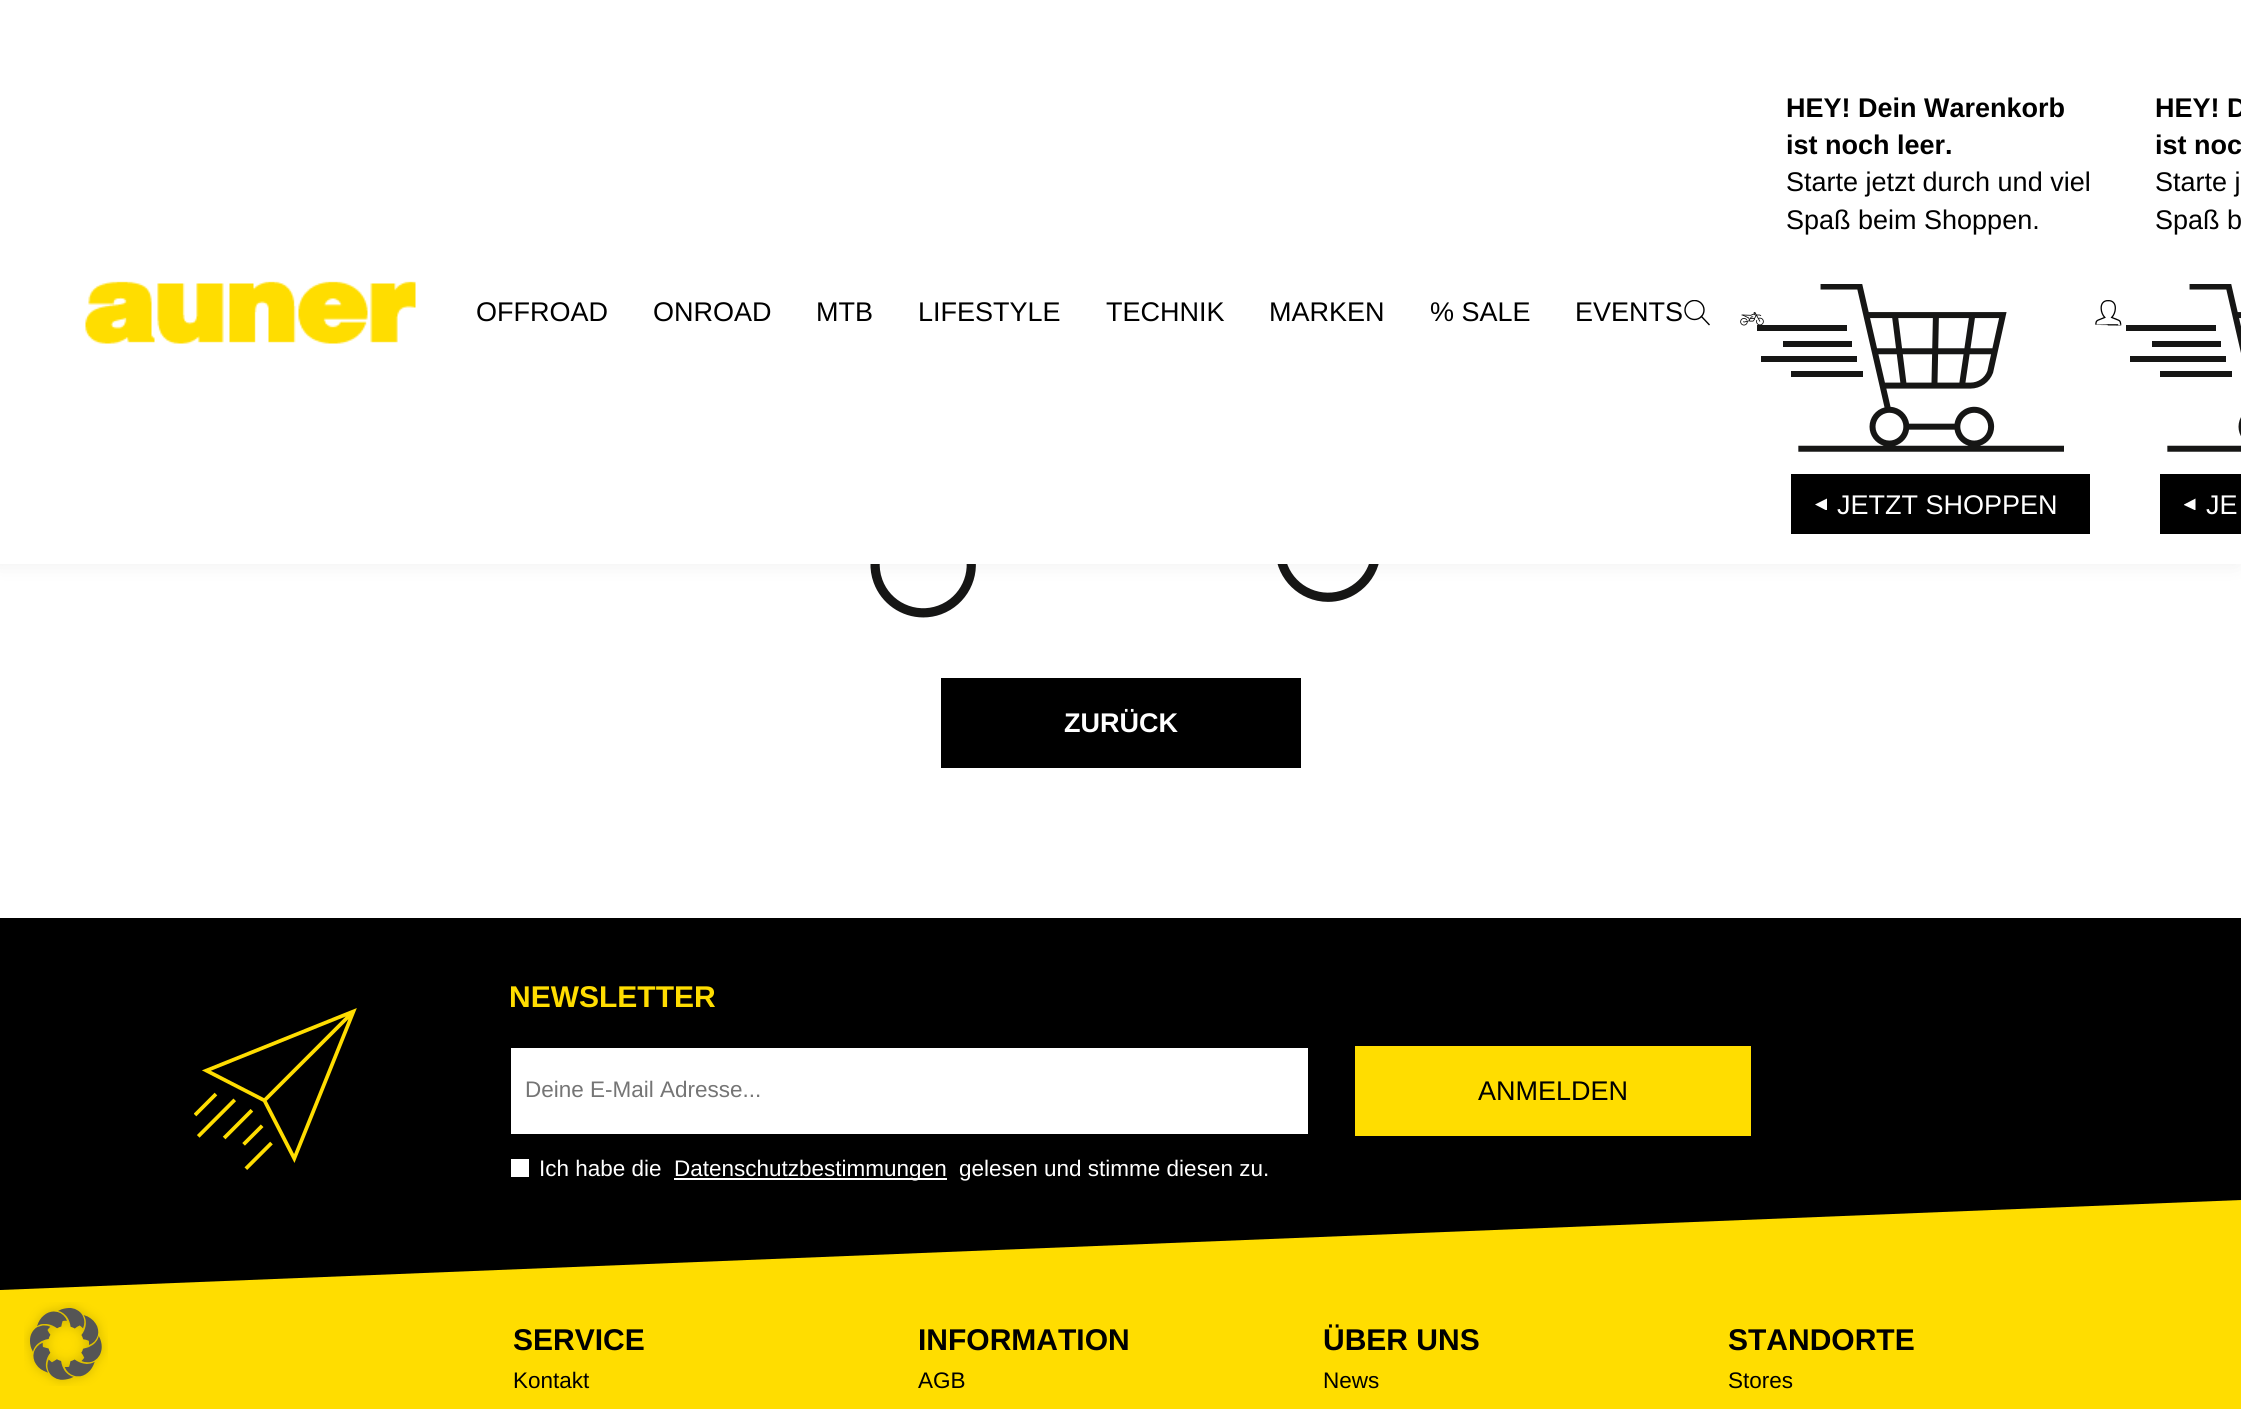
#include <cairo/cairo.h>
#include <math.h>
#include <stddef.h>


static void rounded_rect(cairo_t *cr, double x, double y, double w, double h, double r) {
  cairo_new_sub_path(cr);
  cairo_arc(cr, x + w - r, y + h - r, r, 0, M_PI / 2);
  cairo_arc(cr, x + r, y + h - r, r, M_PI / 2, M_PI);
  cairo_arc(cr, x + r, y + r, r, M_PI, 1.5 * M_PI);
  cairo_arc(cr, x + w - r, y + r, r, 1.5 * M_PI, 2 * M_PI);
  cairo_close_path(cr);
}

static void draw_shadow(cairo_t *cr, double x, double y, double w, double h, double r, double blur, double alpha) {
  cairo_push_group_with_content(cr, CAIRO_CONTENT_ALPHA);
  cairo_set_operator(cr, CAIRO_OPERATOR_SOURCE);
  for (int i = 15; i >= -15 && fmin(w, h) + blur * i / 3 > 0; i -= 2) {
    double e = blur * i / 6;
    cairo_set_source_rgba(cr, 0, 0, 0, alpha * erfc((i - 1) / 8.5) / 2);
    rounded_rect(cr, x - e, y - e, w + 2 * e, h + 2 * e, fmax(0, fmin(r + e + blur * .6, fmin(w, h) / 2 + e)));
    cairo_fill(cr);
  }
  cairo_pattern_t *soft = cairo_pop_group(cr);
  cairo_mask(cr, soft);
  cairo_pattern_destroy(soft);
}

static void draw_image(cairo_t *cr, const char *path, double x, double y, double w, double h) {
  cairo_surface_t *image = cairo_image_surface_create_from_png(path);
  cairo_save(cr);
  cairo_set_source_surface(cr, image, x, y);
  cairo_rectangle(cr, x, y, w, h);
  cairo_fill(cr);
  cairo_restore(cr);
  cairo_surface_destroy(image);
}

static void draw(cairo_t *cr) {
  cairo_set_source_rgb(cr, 1, 1, 1);
  cairo_paint(cr);
  draw_image(cr, "images/6.png", 870, 564, 509, 54);
  cairo_set_source_rgb(cr, 0, 0, 0);
  draw_shadow(cr, -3, 0, 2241, 564, 0, 11, 0.07);
  cairo_set_source_rgb(cr, 1, 1, 1);
  cairo_rectangle(cr, 0, 0, 2241, 564);
  cairo_fill(cr);
  draw_image(cr, "images/1.png", 85, 281, 331, 63);
  cairo_save(cr);
  cairo_rectangle(cr, 1683, 300, 29, 26);
  cairo_clip(cr);
  cairo_arc(cr, 1694.5, 310, 9.5, 0, 2 * M_PI);
  cairo_set_source_rgb(cr, 0, 0, 0);
  cairo_set_line_width(cr, 1.4);
  cairo_stroke(cr);
  cairo_restore(cr);
  cairo_new_path(cr);
  cairo_move_to(cr, 1701, 316);
  cairo_line_to(cr, 1709.5, 325);
  cairo_set_source_rgb(cr, 0, 0, 0);
  cairo_set_line_width(cr, 1.4);
  cairo_stroke(cr);
  draw_image(cr, "images/3.png", 1757, 284, 307, 168);
  draw_image(cr, "images/2.png", 1740, 312, 24, 14);
  cairo_rectangle(cr, 1792, 475, 297, 58);
  cairo_set_line_width(cr, 2);
  cairo_stroke(cr);
  cairo_rectangle(cr, 1793, 476, 295, 56);
  cairo_fill(cr);
  cairo_set_source_rgb(cr, 1, 1, 1);
  cairo_new_path(cr);
  cairo_move_to(cr, 1815, 504.5);
  cairo_line_to(cr, 1827, 498.5);
  cairo_line_to(cr, 1827, 510);
  cairo_line_to(cr, 1825.5, 510);
  cairo_close_path(cr);
  cairo_fill(cr);
  draw_image(cr, "images/4.png", 2095, 300, 27, 26);
  draw_image(cr, "images/5.png", 2126, 284, 115, 168);
  cairo_rectangle(cr, 2161, 475, 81, 58);
  cairo_set_source_rgb(cr, 0, 0, 0);
  cairo_stroke(cr);
  cairo_rectangle(cr, 2162, 476, 79, 56);
  cairo_fill(cr);
  cairo_set_source_rgb(cr, 1, 1, 1);
  cairo_new_path(cr);
  cairo_move_to(cr, 2184, 505);
  cairo_line_to(cr, 2184, 504.5);
  cairo_line_to(cr, 2195.5, 498.5);
  cairo_line_to(cr, 2195.5, 510);
  cairo_line_to(cr, 2194.5, 510);
  cairo_close_path(cr);
  cairo_fill(cr);
  cairo_rectangle(cr, 942.5, 679.5, 357, 87);
  cairo_set_source_rgb(cr, 0, 0, 0);
  cairo_set_line_width(cr, 3);
  cairo_stroke(cr);
  cairo_rectangle(cr, 944, 681, 354, 84);
  cairo_fill(cr);
  cairo_rectangle(cr, 0, 918, 2241, 372);
  cairo_fill(cr);
  cairo_set_source_rgb(cr, 1, 221 / 255.0, 0);
  cairo_new_path(cr);
  cairo_move_to(cr, 0, 1290);
  cairo_line_to(cr, 0, 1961);
  cairo_line_to(cr, 2241, 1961);
  cairo_line_to(cr, 2241, 1200);
  cairo_close_path(cr);
  cairo_fill(cr);
  draw_image(cr, "images/7.png", 24, 1302, 84, 84);
  draw_image(cr, "images/8.png", 194, 1008, 163, 162);
  cairo_set_source_rgb(cr, 1, 1, 1);
  cairo_rectangle(cr, 511, 1048, 797, 86);
  cairo_fill(cr);
  cairo_rectangle(cr, 511, 1159, 18, 18);
  cairo_fill(cr);
  cairo_rectangle(cr, 674, 1178, 273, 2);
  cairo_fill(cr);
  cairo_rectangle(cr, 1356.5, 1047.5, 393, 87);
  cairo_set_source_rgb(cr, 1, 221 / 255.0, 0);
  cairo_stroke(cr);
  cairo_rectangle(cr, 1358, 1049, 390, 84);
  cairo_fill(cr);
  cairo_select_font_face(cr, "Liberation Sans", CAIRO_FONT_SLANT_NORMAL, CAIRO_FONT_WEIGHT_NORMAL);
  cairo_set_font_size(cr, 27);
  cairo_set_source_rgb(cr, 0, 0, 0);
  cairo_move_to(cr, 476, 321);
  cairo_show_text(cr, "OFFROAD");
  cairo_move_to(cr, 653, 321);
  cairo_show_text(cr, "ONROAD");
  cairo_move_to(cr, 816, 321);
  cairo_show_text(cr, "MTB");
  cairo_move_to(cr, 918, 321);
  cairo_show_text(cr, "LIFESTYLE");
  cairo_move_to(cr, 1106, 321);
  cairo_show_text(cr, "TECHNIK");
  cairo_move_to(cr, 1269, 321);
  cairo_show_text(cr, "MARKEN");
  cairo_move_to(cr, 1430, 321);
  cairo_show_text(cr, "% SALE");
  cairo_move_to(cr, 1575, 321);
  cairo_show_text(cr, "EVENTS");
  cairo_select_font_face(cr, "Liberation Sans", CAIRO_FONT_SLANT_NORMAL, CAIRO_FONT_WEIGHT_BOLD);
  cairo_move_to(cr, 1786, 117);
  cairo_show_text(cr, "HEY! Dein Warenkorb");
  cairo_move_to(cr, 1786, 154);
  cairo_show_text(cr, "ist noch leer.");
  cairo_select_font_face(cr, "Liberation Sans", CAIRO_FONT_SLANT_NORMAL, CAIRO_FONT_WEIGHT_NORMAL);
  cairo_move_to(cr, 1786, 191);
  cairo_show_text(cr, "Starte jetzt durch und viel");
  cairo_move_to(cr, 1786, 229);
  cairo_show_text(cr, "Spaß beim Shoppen.");
  cairo_set_source_rgb(cr, 1, 1, 1);
  cairo_move_to(cr, 1837, 514);
  cairo_show_text(cr, "JETZT SHOPPEN");
  cairo_select_font_face(cr, "Liberation Sans", CAIRO_FONT_SLANT_NORMAL, CAIRO_FONT_WEIGHT_BOLD);
  cairo_set_source_rgb(cr, 0, 0, 0);
  cairo_move_to(cr, 2155, 117);
  cairo_show_text(cr, "HEY! D");
  cairo_move_to(cr, 2155, 154);
  cairo_show_text(cr, "ist noc");
  cairo_select_font_face(cr, "Liberation Sans", CAIRO_FONT_SLANT_NORMAL, CAIRO_FONT_WEIGHT_NORMAL);
  cairo_move_to(cr, 2155, 191);
  cairo_show_text(cr, "Starte j");
  cairo_move_to(cr, 2155, 229);
  cairo_show_text(cr, "Spaß b");
  cairo_set_source_rgb(cr, 1, 1, 1);
  cairo_move_to(cr, 2206, 514);
  cairo_show_text(cr, "JE");
  cairo_select_font_face(cr, "Liberation Sans", CAIRO_FONT_SLANT_NORMAL, CAIRO_FONT_WEIGHT_BOLD);
  cairo_move_to(cr, 1064, 732);
  cairo_show_text(cr, "ZURÜCK");
  cairo_set_font_size(cr, 30);
  cairo_set_source_rgb(cr, 1, 221 / 255.0, 0);
  cairo_move_to(cr, 509, 1007);
  cairo_show_text(cr, "NEWSLETTER");
  cairo_select_font_face(cr, "Liberation Sans", CAIRO_FONT_SLANT_NORMAL, CAIRO_FONT_WEIGHT_NORMAL);
  cairo_set_font_size(cr, 22.5);
  cairo_set_source_rgb(cr, 117 / 255.0, 117 / 255.0, 117 / 255.0);
  cairo_move_to(cr, 525, 1097);
  cairo_show_text(cr, "Deine E-Mail Adresse...");
  cairo_set_source_rgb(cr, 1, 1, 1);
  cairo_move_to(cr, 539, 1176);
  cairo_show_text(cr, "Ich habe die");
  cairo_move_to(cr, 674, 1176);
  cairo_show_text(cr, "Datenschutzbestimmungen");
  cairo_move_to(cr, 959, 1176);
  cairo_show_text(cr, "gelesen und stimme diesen zu.");
  cairo_set_font_size(cr, 27);
  cairo_set_source_rgb(cr, 0, 0, 0);
  cairo_move_to(cr, 1478, 1100);
  cairo_show_text(cr, "ANMELDEN");
  cairo_select_font_face(cr, "Liberation Sans", CAIRO_FONT_SLANT_NORMAL, CAIRO_FONT_WEIGHT_BOLD);
  cairo_set_font_size(cr, 30);
  cairo_move_to(cr, 513, 1350);
  cairo_show_text(cr, "SERVICE");
  cairo_select_font_face(cr, "Liberation Sans", CAIRO_FONT_SLANT_NORMAL, CAIRO_FONT_WEIGHT_NORMAL);
  cairo_set_font_size(cr, 22.5);
  cairo_move_to(cr, 513, 1388);
  cairo_show_text(cr, "Kontakt");
  cairo_select_font_face(cr, "Liberation Sans", CAIRO_FONT_SLANT_NORMAL, CAIRO_FONT_WEIGHT_BOLD);
  cairo_set_font_size(cr, 30);
  cairo_move_to(cr, 918, 1350);
  cairo_show_text(cr, "INFORMATION");
  cairo_select_font_face(cr, "Liberation Sans", CAIRO_FONT_SLANT_NORMAL, CAIRO_FONT_WEIGHT_NORMAL);
  cairo_set_font_size(cr, 22.5);
  cairo_move_to(cr, 918, 1388);
  cairo_show_text(cr, "AGB");
  cairo_select_font_face(cr, "Liberation Sans", CAIRO_FONT_SLANT_NORMAL, CAIRO_FONT_WEIGHT_BOLD);
  cairo_set_font_size(cr, 30);
  cairo_move_to(cr, 1323, 1350);
  cairo_show_text(cr, "ÜBER UNS");
  cairo_select_font_face(cr, "Liberation Sans", CAIRO_FONT_SLANT_NORMAL, CAIRO_FONT_WEIGHT_NORMAL);
  cairo_set_font_size(cr, 22.5);
  cairo_move_to(cr, 1323, 1388);
  cairo_show_text(cr, "News");
  cairo_select_font_face(cr, "Liberation Sans", CAIRO_FONT_SLANT_NORMAL, CAIRO_FONT_WEIGHT_BOLD);
  cairo_set_font_size(cr, 30);
  cairo_move_to(cr, 1728, 1350);
  cairo_show_text(cr, "STANDORTE");
  cairo_select_font_face(cr, "Liberation Sans", CAIRO_FONT_SLANT_NORMAL, CAIRO_FONT_WEIGHT_NORMAL);
  cairo_set_font_size(cr, 22.5);
  cairo_move_to(cr, 1728, 1388);
  cairo_show_text(cr, "Stores");
}

int main(void) {
  cairo_surface_t *surface = cairo_image_surface_create(CAIRO_FORMAT_RGB24, 2241, 1409);
  cairo_t *cr = cairo_create(surface);
  cairo_font_options_t *options = cairo_font_options_create();
  cairo_font_options_set_hint_metrics(options, CAIRO_HINT_METRICS_OFF);
  cairo_font_options_set_hint_style(options, CAIRO_HINT_STYLE_NONE);
  cairo_set_font_options(cr, options);
  cairo_set_miter_limit(cr, 4);
  draw(cr);
  cairo_surface_write_to_png(surface, "out.png");
  cairo_font_options_destroy(options);
  cairo_destroy(cr);
  cairo_surface_destroy(surface);
  return 0;
}
